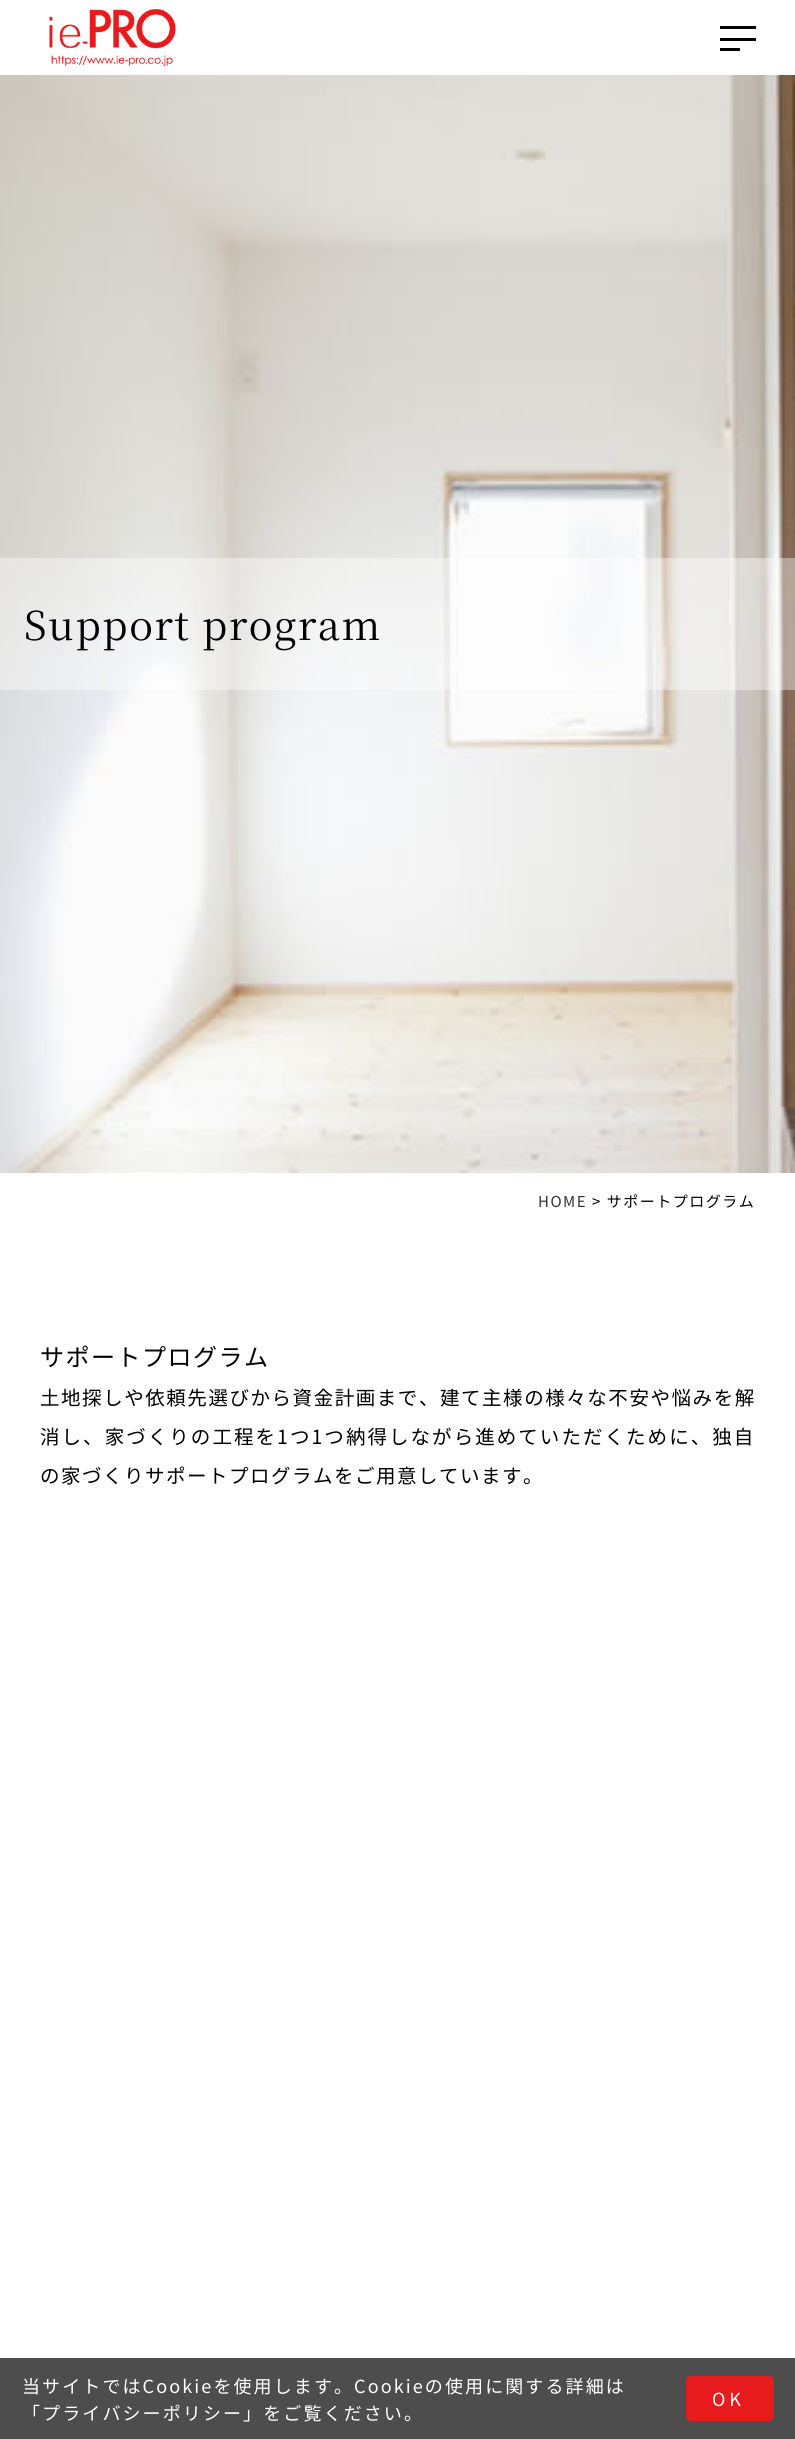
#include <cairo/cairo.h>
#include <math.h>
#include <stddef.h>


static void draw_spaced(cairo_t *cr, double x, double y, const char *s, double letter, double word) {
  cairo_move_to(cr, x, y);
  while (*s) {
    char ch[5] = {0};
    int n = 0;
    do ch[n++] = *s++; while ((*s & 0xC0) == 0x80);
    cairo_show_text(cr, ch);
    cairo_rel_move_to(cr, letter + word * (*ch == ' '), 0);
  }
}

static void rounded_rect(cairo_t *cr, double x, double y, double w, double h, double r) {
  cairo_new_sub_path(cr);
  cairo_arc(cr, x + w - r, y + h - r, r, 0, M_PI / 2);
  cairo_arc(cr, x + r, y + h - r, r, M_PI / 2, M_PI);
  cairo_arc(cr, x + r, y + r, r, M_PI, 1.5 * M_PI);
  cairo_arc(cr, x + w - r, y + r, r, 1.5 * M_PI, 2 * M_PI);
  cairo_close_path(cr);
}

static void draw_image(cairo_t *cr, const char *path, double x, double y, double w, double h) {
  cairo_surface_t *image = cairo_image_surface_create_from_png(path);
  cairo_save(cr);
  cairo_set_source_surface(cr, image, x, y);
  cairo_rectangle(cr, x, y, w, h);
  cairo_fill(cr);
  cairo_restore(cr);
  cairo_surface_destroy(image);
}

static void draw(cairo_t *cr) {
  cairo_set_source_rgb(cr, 1, 1, 1);
  cairo_paint(cr);
  draw_image(cr, "images/1.png", 49, 9, 127, 57);
  cairo_set_source_rgb(cr, 0, 0, 0);
  cairo_rectangle(cr, 720, 26, 36, 3);
  cairo_fill(cr);
  cairo_rectangle(cr, 720, 38, 36, 3);
  cairo_fill(cr);
  cairo_rectangle(cr, 720, 48, 20, 3);
  cairo_fill(cr);
  draw_image(cr, "images/2.png", 0, 75, 795, 1098);
  cairo_set_source_rgba(cr, 1, 1, 1, 0.4);
  cairo_rectangle(cr, 0, 558, 795, 132);
  cairo_fill(cr);
  cairo_set_source_rgb(cr, 77 / 255.0, 77 / 255.0, 77 / 255.0);
  cairo_rectangle(cr, 0, 2358, 795, 81);
  cairo_fill(cr);
  cairo_set_source_rgb(cr, 231 / 255.0, 26 / 255.0, 29 / 255.0);
  rounded_rect(cr, 686, 2376, 88, 45, 5);
  cairo_fill(cr);
  cairo_select_font_face(cr, "Noto Serif JP", CAIRO_FONT_SLANT_NORMAL, CAIRO_FONT_WEIGHT_NORMAL);
  cairo_set_font_size(cr, 39.75);
  cairo_set_source_rgb(cr, 0, 0, 0);
  draw_spaced(cr, 24, 640, "Support program", 1.5, 0);
  cairo_select_font_face(cr, "Noto Sans JP", CAIRO_FONT_SLANT_NORMAL, CAIRO_FONT_WEIGHT_NORMAL);
  cairo_set_font_size(cr, 15);
  cairo_set_source_rgb(cr, 51 / 255.0, 51 / 255.0, 51 / 255.0);
  draw_spaced(cr, 538, 1207, "HOME", 1.5, 0);
  cairo_set_source_rgb(cr, 0, 0, 0);
  draw_spaced(cr, 592, 1207, "> サポートプログラム", 1.5, 0);
  cairo_set_font_size(cr, 24);
  draw_spaced(cr, 40, 1366, "サポートプログラム", 1.5, 0);
  cairo_set_font_size(cr, 19.5);
  draw_spaced(cr, 40, 1405, "土地探しや依頼先選びから資金計画まで、建て主様の様々な不安や悩みを解", 1.55, 0);
  draw_spaced(cr, 40, 1444, "消し、家づくりの工程を1つ1つ納得しながら進めていただくために、独自", 2.05, 0);
  draw_spaced(cr, 40, 1483, "の家づくりサポートプログラムをご用意しています。", 1.5, 0);
  cairo_set_font_size(cr, 18);
  cairo_set_source_rgb(cr, 1, 1, 1);
  draw_spaced(cr, 22, 2393, "当サイトではCookieを使用します。Cookieの使用に関する詳細は", 2.1, 0);
  draw_spaced(cr, 22, 2420, "「プライバシーポリシー」をご覧ください。", 2.1, 0);
  draw_spaced(cr, 712, 2406, "OK", 4, 0);
}

int main(void) {
  cairo_surface_t *surface = cairo_image_surface_create(CAIRO_FORMAT_RGB24, 795, 2439);
  cairo_t *cr = cairo_create(surface);
  cairo_font_options_t *options = cairo_font_options_create();
  cairo_font_options_set_hint_metrics(options, CAIRO_HINT_METRICS_OFF);
  cairo_font_options_set_hint_style(options, CAIRO_HINT_STYLE_NONE);
  cairo_set_font_options(cr, options);
  cairo_set_miter_limit(cr, 4);
  draw(cr);
  cairo_surface_write_to_png(surface, "out.png");
  cairo_font_options_destroy(options);
  cairo_destroy(cr);
  cairo_surface_destroy(surface);
  return 0;
}
